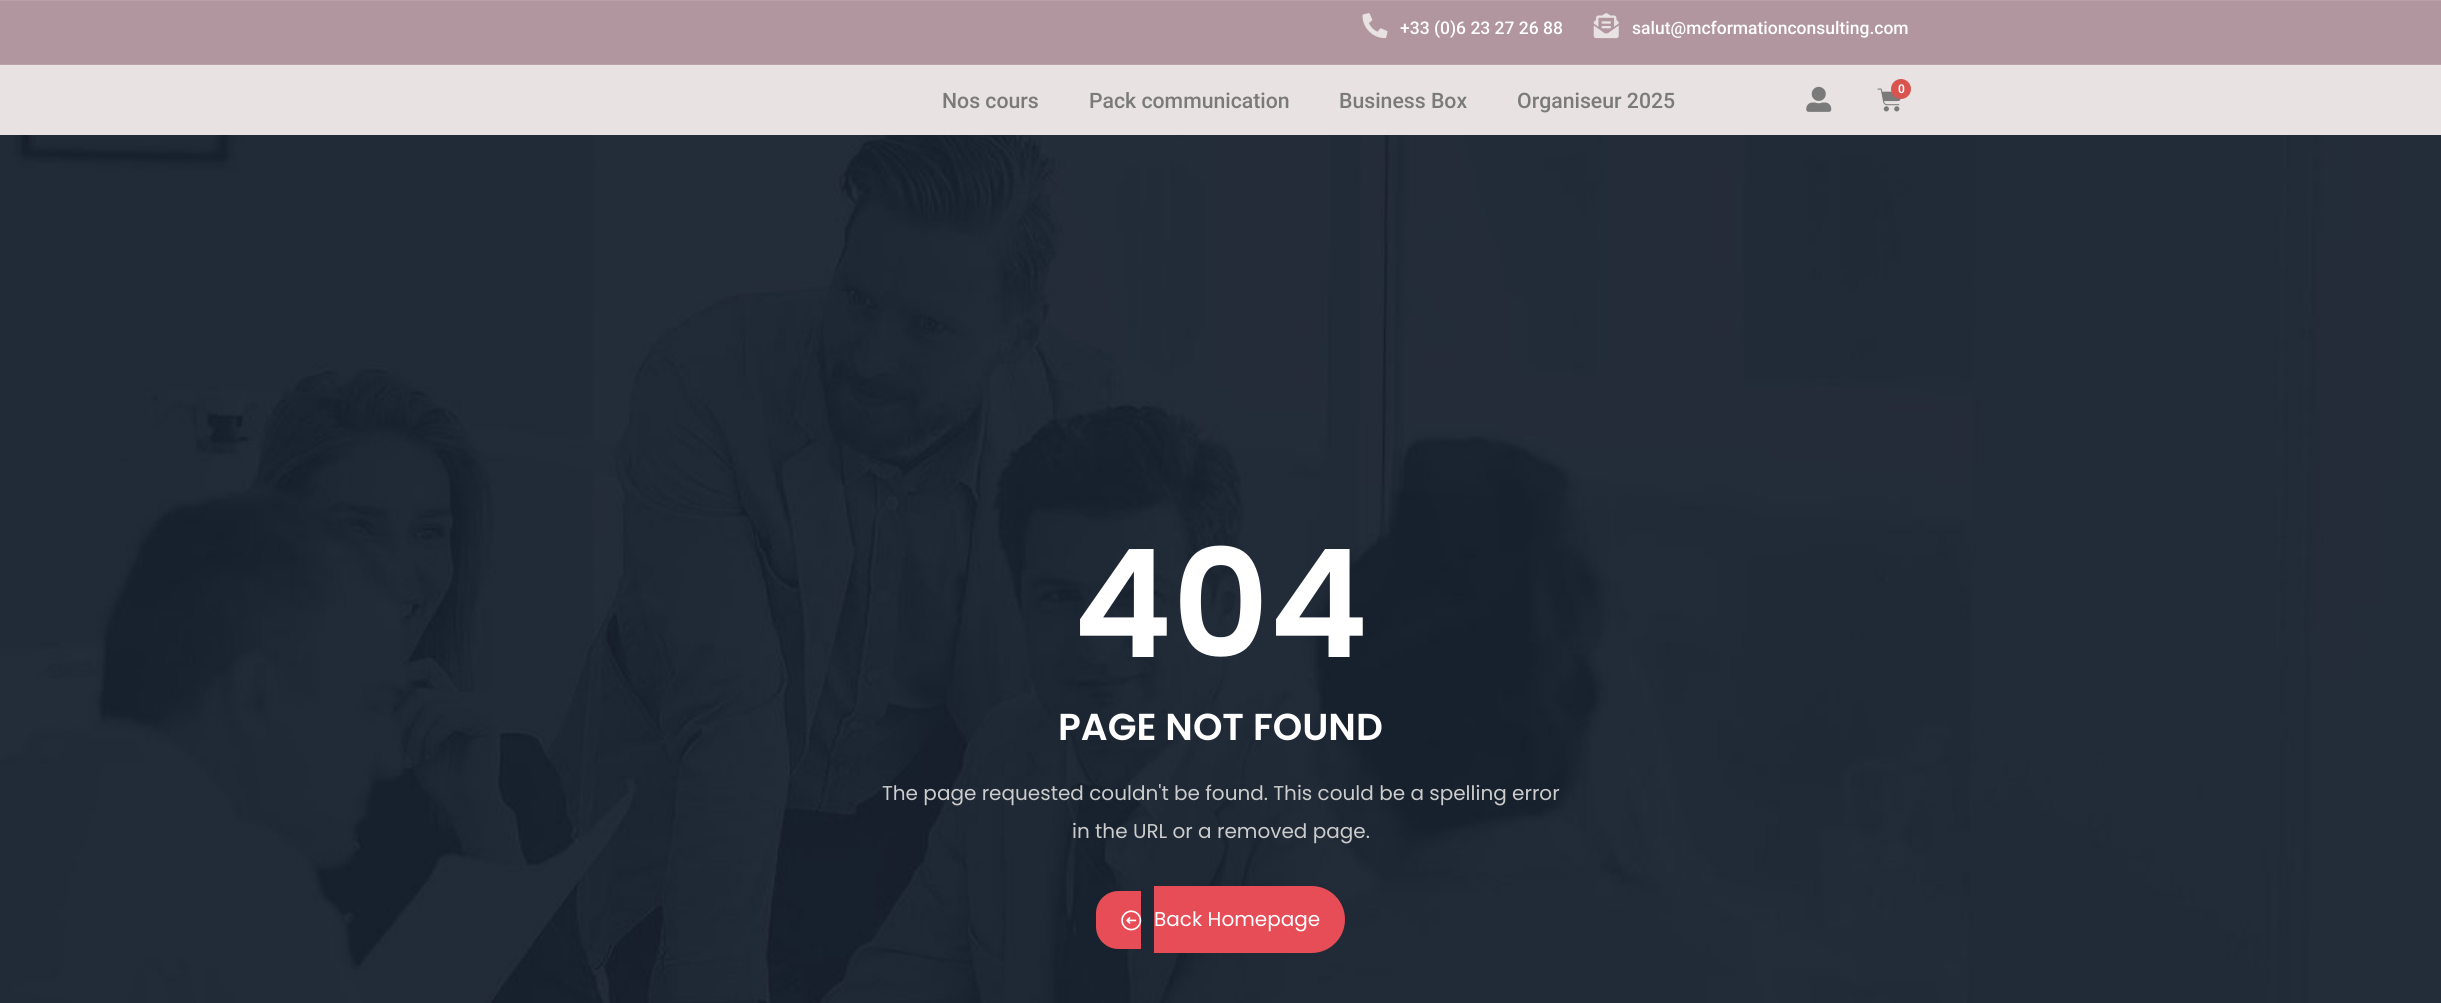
#include <cairo/cairo.h>
#include <math.h>
#include <stddef.h>


static void draw_image(cairo_t *cr, const char *path, double x, double y, double w, double h) {
  cairo_surface_t *image = cairo_image_surface_create_from_png(path);
  cairo_save(cr);
  cairo_set_source_surface(cr, image, x, y);
  cairo_rectangle(cr, x, y, w, h);
  cairo_fill(cr);
  cairo_restore(cr);
  cairo_surface_destroy(image);
}

static void draw(cairo_t *cr) {
  cairo_set_source_rgb(cr, 1, 1, 1);
  cairo_paint(cr);
  cairo_set_source_rgb(cr, 177 / 255.0, 149 / 255.0, 159 / 255.0);
  cairo_rectangle(cr, 0, 1, 2441, 63);
  cairo_fill(cr);
  cairo_set_source_rgb(cr, 185 / 255.0, 160 / 255.0, 169 / 255.0);
  cairo_rectangle(cr, 0, 0, 2441, 1);
  cairo_fill(cr);
  cairo_rectangle(cr, 0, 64, 2441, 1);
  cairo_fill(cr);
  draw_image(cr, "images/1.png", 1362, 13, 26, 26);
  draw_image(cr, "images/2.png", 1593, 13, 26, 26);
  cairo_set_source_rgb(cr, 232 / 255.0, 226 / 255.0, 226 / 255.0);
  cairo_rectangle(cr, 0, 65, 2441, 70);
  cairo_fill(cr);
  draw_image(cr, "images/3.png", 1806, 86, 26, 26);
  draw_image(cr, "images/4.png", 1877, 88, 24, 24);
  cairo_set_source_rgb(cr, 217 / 255.0, 83 / 255.0, 79 / 255.0);
  cairo_arc(cr, 1901, 89, 10, 0, 2 * M_PI);
  cairo_fill(cr);
  draw_image(cr, "images/5.png", 0, 135, 2441, 868);
  cairo_set_source_rgb(cr, 231 / 255.0, 77 / 255.0, 87 / 255.0);
  cairo_new_path(cr);
  cairo_move_to(cr, 1118.5, 891);
  cairo_line_to(cr, 1141, 891);
  cairo_line_to(cr, 1141, 949);
  cairo_line_to(cr, 1118.5, 949);
  cairo_curve_to(cr, 1106, 949, 1096, 939, 1096, 926.5);
  cairo_line_to(cr, 1096, 913.5);
  cairo_curve_to(cr, 1096, 901, 1106, 891, 1118.5, 891);
  cairo_close_path(cr);
  cairo_fill(cr);
  draw_image(cr, "images/6.png", 1121, 910, 21, 21);
  cairo_new_path(cr);
  cairo_move_to(cr, 1154, 886);
  cairo_line_to(cr, 1311.5, 886);
  cairo_curve_to(cr, 1330, 886, 1345, 901, 1345, 919.5);
  cairo_curve_to(cr, 1345, 938, 1330, 953, 1311.5, 953);
  cairo_line_to(cr, 1154, 953);
  cairo_close_path(cr);
  cairo_fill(cr);
  cairo_select_font_face(cr, "Roboto Medium", CAIRO_FONT_SLANT_NORMAL, CAIRO_FONT_WEIGHT_NORMAL);
  cairo_set_font_size(cr, 17.5);
  cairo_set_source_rgb(cr, 1, 1, 1);
  cairo_move_to(cr, 1400, 34);
  cairo_show_text(cr, "+33 (0)6 23 27 26 88");
  cairo_move_to(cr, 1632, 34);
  cairo_show_text(cr, "salut@mcformationconsulting.com");
  cairo_set_font_size(cr, 21.25);
  cairo_set_source_rgb(cr, 122 / 255.0, 122 / 255.0, 122 / 255.0);
  cairo_move_to(cr, 942, 108);
  cairo_show_text(cr, "Nos cours");
  cairo_move_to(cr, 1089, 108);
  cairo_show_text(cr, "Pack communication");
  cairo_move_to(cr, 1339, 108);
  cairo_show_text(cr, "Business Box");
  cairo_move_to(cr, 1517, 108);
  cairo_show_text(cr, "Organiseur 2025");
  cairo_select_font_face(cr, "Roboto SemiBold", CAIRO_FONT_SLANT_NORMAL, CAIRO_FONT_WEIGHT_NORMAL);
  cairo_set_font_size(cr, 12);
  cairo_set_source_rgb(cr, 1, 1, 1);
  cairo_move_to(cr, 1898, 93);
  cairo_show_text(cr, "0");
  cairo_select_font_face(cr, "Poppins SemiBold", CAIRO_FONT_SLANT_NORMAL, CAIRO_FONT_WEIGHT_NORMAL);
  cairo_set_font_size(cr, 150);
  cairo_move_to(cr, 1073, 657);
  cairo_show_text(cr, "404");
  cairo_set_font_size(cr, 37.5);
  cairo_move_to(cr, 1058, 740);
  cairo_show_text(cr, "PAGE NOT FOUND");
  cairo_select_font_face(cr, "Poppins", CAIRO_FONT_SLANT_NORMAL, CAIRO_FONT_WEIGHT_NORMAL);
  cairo_set_font_size(cr, 20);
  cairo_set_source_rgb(cr, 204 / 255.0, 204 / 255.0, 204 / 255.0);
  cairo_move_to(cr, 882, 800);
  cairo_show_text(cr, "The page requested couldn't be found. This could be a spelling error");
  cairo_move_to(cr, 1072, 838);
  cairo_show_text(cr, "in the URL or a removed page.");
  cairo_set_source_rgb(cr, 1, 1, 1);
  cairo_move_to(cr, 1154, 926);
  cairo_show_text(cr, "Back Homepage");
}

int main(void) {
  cairo_surface_t *surface = cairo_image_surface_create(CAIRO_FORMAT_RGB24, 2441, 1003);
  cairo_t *cr = cairo_create(surface);
  cairo_font_options_t *options = cairo_font_options_create();
  cairo_font_options_set_hint_metrics(options, CAIRO_HINT_METRICS_OFF);
  cairo_font_options_set_hint_style(options, CAIRO_HINT_STYLE_NONE);
  cairo_set_font_options(cr, options);
  cairo_set_miter_limit(cr, 4);
  draw(cr);
  cairo_surface_write_to_png(surface, "out.png");
  cairo_font_options_destroy(options);
  cairo_destroy(cr);
  cairo_surface_destroy(surface);
  return 0;
}
